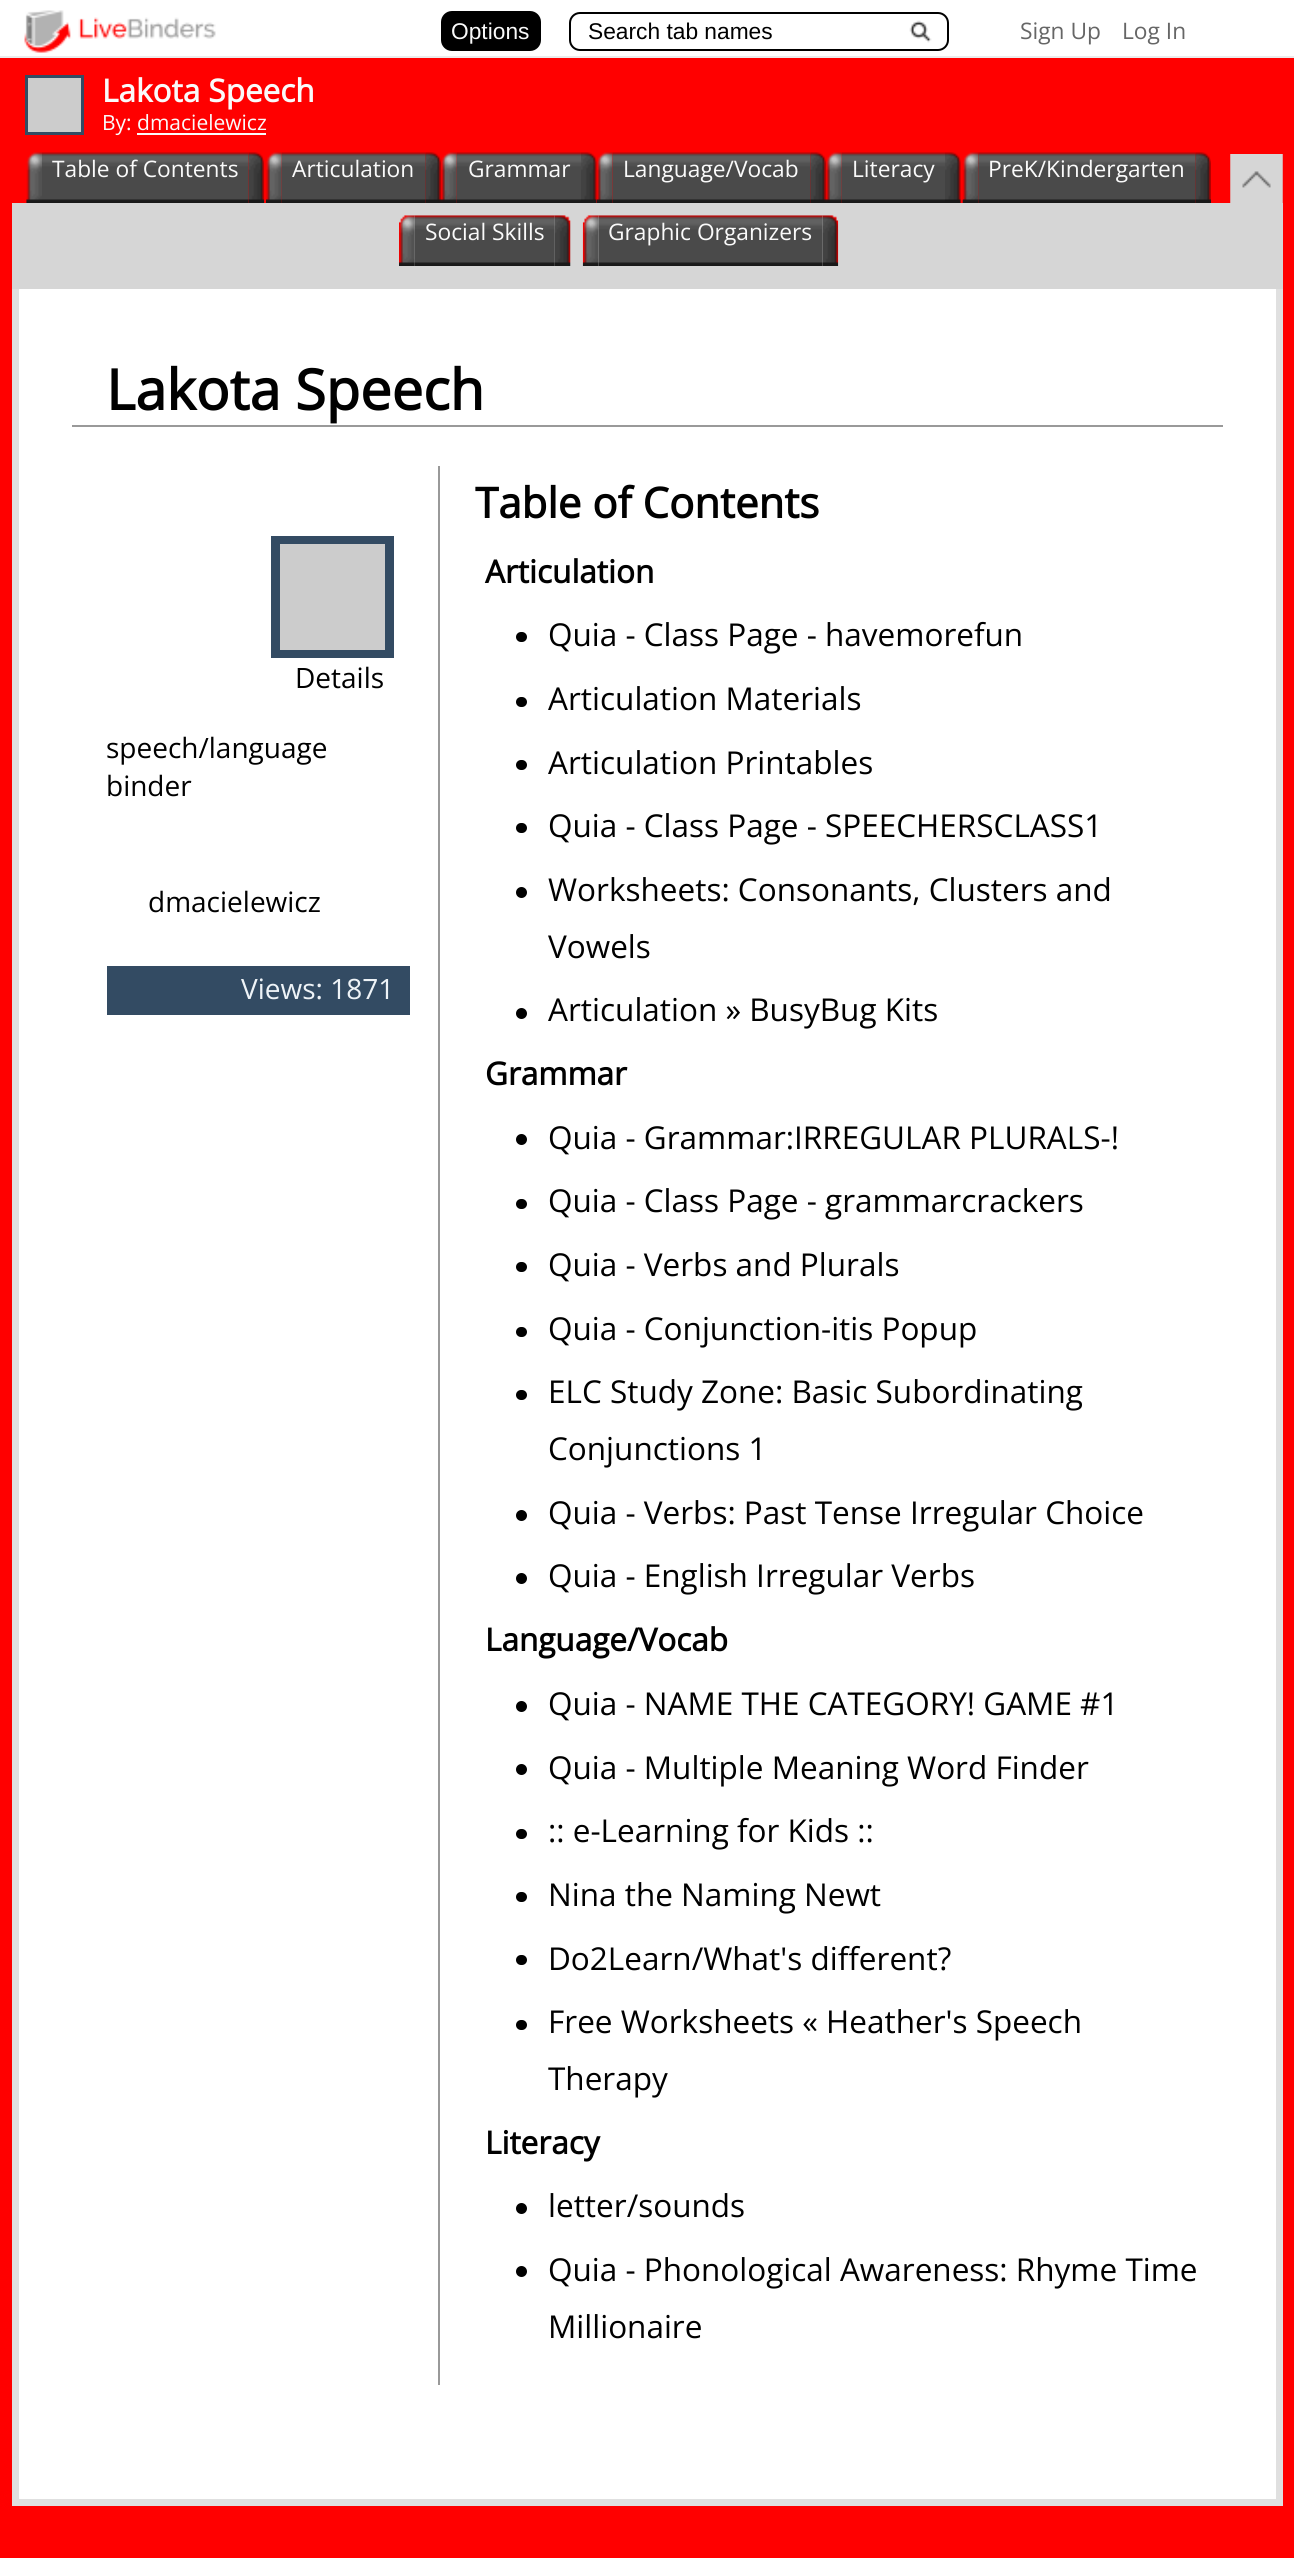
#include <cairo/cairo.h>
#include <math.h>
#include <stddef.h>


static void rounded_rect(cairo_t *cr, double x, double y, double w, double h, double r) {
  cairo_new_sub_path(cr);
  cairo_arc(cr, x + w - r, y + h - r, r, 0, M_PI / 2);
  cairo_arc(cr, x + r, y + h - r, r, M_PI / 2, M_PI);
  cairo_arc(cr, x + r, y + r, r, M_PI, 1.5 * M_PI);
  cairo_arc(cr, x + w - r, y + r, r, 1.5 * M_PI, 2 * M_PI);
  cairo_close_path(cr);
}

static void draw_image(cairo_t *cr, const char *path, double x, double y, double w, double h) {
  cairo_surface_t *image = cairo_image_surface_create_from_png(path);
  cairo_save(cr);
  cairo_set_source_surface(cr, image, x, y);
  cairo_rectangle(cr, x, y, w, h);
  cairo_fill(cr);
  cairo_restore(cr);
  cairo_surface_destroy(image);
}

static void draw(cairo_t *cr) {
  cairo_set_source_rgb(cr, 1, 0, 0);
  cairo_paint(cr);
  cairo_set_source_rgb(cr, 1, 1, 1);
  cairo_rectangle(cr, 0, 0, 1294, 56);
  cairo_fill(cr);
  cairo_set_source_rgb(cr, 235 / 255.0, 235 / 255.0, 235 / 255.0);
  cairo_rectangle(cr, 0, 56, 1294, 2);
  cairo_fill(cr);
  draw_image(cr, "images/1.png", 24, 10, 192, 43);
  cairo_set_source_rgb(cr, 0, 0, 0);
  rounded_rect(cr, 442, 12, 98, 38, 10);
  cairo_fill_preserve(cr);
  cairo_stroke(cr);
  draw_image(cr, "images/2.png", 909, 20, 23, 23);
  rounded_rect(cr, 570, 13, 378, 37, 10);
  cairo_stroke(cr);
  cairo_set_source_rgb(cr, 51 / 255.0, 75 / 255.0, 99 / 255.0);
  cairo_rectangle(cr, 25, 75, 59, 60);
  cairo_fill(cr);
  cairo_set_source_rgb(cr, 204 / 255.0, 204 / 255.0, 204 / 255.0);
  cairo_rectangle(cr, 28, 78, 53, 54);
  cairo_fill(cr);
  cairo_set_source_rgb(cr, 250 / 255.0, 250 / 255.0, 250 / 255.0);
  cairo_rectangle(cr, 137, 133, 129, 2);
  cairo_fill(cr);
  cairo_set_source_rgb(cr, 214 / 255.0, 214 / 255.0, 214 / 255.0);
  cairo_rectangle(cr, 12, 203, 1271, 86);
  cairo_fill(cr);
  draw_image(cr, "images/3.png", 26, 152, 16, 51);
  draw_image(cr, "images/4.png", 42, 152, 207, 51);
  draw_image(cr, "images/5.png", 248, 152, 17, 51);
  draw_image(cr, "images/6.png", 266, 152, 16, 51);
  draw_image(cr, "images/7.png", 281, 152, 145, 51);
  draw_image(cr, "images/8.png", 425, 152, 16, 51);
  draw_image(cr, "images/9.png", 441, 152, 16, 51);
  draw_image(cr, "images/10.png", 456, 152, 125, 51);
  draw_image(cr, "images/11.png", 581, 152, 16, 51);
  draw_image(cr, "images/12.png", 596, 152, 17, 51);
  draw_image(cr, "images/13.png", 612, 152, 199, 51);
  draw_image(cr, "images/14.png", 810, 152, 16, 51);
  draw_image(cr, "images/9.png", 826, 152, 16, 51);
  draw_image(cr, "images/15.png", 841, 152, 104, 51);
  draw_image(cr, "images/11.png", 945, 152, 16, 51);
  draw_image(cr, "images/16.png", 962, 152, 17, 51);
  draw_image(cr, "images/17.png", 978, 152, 218, 51);
  draw_image(cr, "images/8.png", 1195, 152, 16, 51);
  draw_image(cr, "images/18.png", 399, 215, 16, 51);
  draw_image(cr, "images/19.png", 414, 215, 141, 51);
  draw_image(cr, "images/20.png", 554, 215, 17, 51);
  draw_image(cr, "images/21.png", 582, 215, 17, 51);
  draw_image(cr, "images/22.png", 598, 215, 225, 51);
  draw_image(cr, "images/23.png", 822, 215, 17, 51);
  draw_image(cr, "images/24.png", 1230, 154, 53, 49);
  cairo_set_source_rgb(cr, 1, 1, 1);
  cairo_rectangle(cr, 19, 289, 1257, 2210);
  cairo_fill(cr);
  cairo_set_source_rgb(cr, 224 / 255.0, 224 / 255.0, 224 / 255.0);
  cairo_rectangle(cr, 1276, 289, 7, 2217);
  cairo_fill(cr);
  cairo_rectangle(cr, 12, 2499, 1271, 7);
  cairo_fill(cr);
  cairo_rectangle(cr, 12, 289, 7, 2217);
  cairo_fill(cr);
  cairo_set_source_rgb(cr, 153 / 255.0, 153 / 255.0, 153 / 255.0);
  cairo_rectangle(cr, 72, 425, 1151, 2);
  cairo_fill(cr);
  cairo_rectangle(cr, 438, 466, 2, 1919);
  cairo_fill(cr);
  cairo_set_source_rgb(cr, 51 / 255.0, 75 / 255.0, 99 / 255.0);
  cairo_rectangle(cr, 271, 536, 123, 122);
  cairo_fill(cr);
  cairo_set_source_rgb(cr, 204 / 255.0, 204 / 255.0, 204 / 255.0);
  cairo_rectangle(cr, 280, 544, 105, 106);
  cairo_fill(cr);
  cairo_set_source_rgb(cr, 51 / 255.0, 75 / 255.0, 99 / 255.0);
  cairo_rectangle(cr, 107, 966, 303, 49);
  cairo_fill(cr);
  cairo_set_source_rgb(cr, 0, 0, 0);
  rounded_rect(cr, 516, 632, 11, 10, 5);
  cairo_fill(cr);
  rounded_rect(cr, 516, 697, 11, 10, 5);
  cairo_fill(cr);
  rounded_rect(cr, 516, 760, 11, 10, 5);
  cairo_fill(cr);
  rounded_rect(cr, 516, 823, 11, 10, 5);
  cairo_fill(cr);
  cairo_arc(cr, 521.5, 892.5, 5.5, 0, 2 * M_PI);
  cairo_fill(cr);
  cairo_arc(cr, 521.5, 1013.5, 5.5, 0, 2 * M_PI);
  cairo_fill(cr);
  cairo_arc(cr, 521.5, 1139.5, 5.5, 0, 2 * M_PI);
  cairo_fill(cr);
  rounded_rect(cr, 516, 1199, 11, 10, 5);
  cairo_fill(cr);
  rounded_rect(cr, 516, 1262, 11, 10, 5);
  cairo_fill(cr);
  rounded_rect(cr, 516, 1327, 11, 10, 5);
  cairo_fill(cr);
  rounded_rect(cr, 516, 1390, 11, 10, 5);
  cairo_fill(cr);
  cairo_arc(cr, 521.5, 1515.5, 5.5, 0, 2 * M_PI);
  cairo_fill(cr);
  cairo_arc(cr, 521.5, 1578.5, 5.5, 0, 2 * M_PI);
  cairo_fill(cr);
  cairo_arc(cr, 521.5, 1706.5, 5.5, 0, 2 * M_PI);
  cairo_fill(cr);
  cairo_arc(cr, 521.5, 1769.5, 5.5, 0, 2 * M_PI);
  cairo_fill(cr);
  rounded_rect(cr, 516, 1829, 11, 10, 5);
  cairo_fill(cr);
  rounded_rect(cr, 516, 1892, 11, 10, 5);
  cairo_fill(cr);
  rounded_rect(cr, 516, 1955, 11, 10, 5);
  cairo_fill(cr);
  rounded_rect(cr, 516, 2020, 11, 10, 5);
  cairo_fill(cr);
  cairo_arc(cr, 521.5, 2208.5, 5.5, 0, 2 * M_PI);
  cairo_fill(cr);
  cairo_arc(cr, 521.5, 2271.5, 5.5, 0, 2 * M_PI);
  cairo_fill(cr);
  cairo_select_font_face(cr, "Liberation Sans", CAIRO_FONT_SLANT_NORMAL, CAIRO_FONT_WEIGHT_NORMAL);
  cairo_set_font_size(cr, 22.75);
  cairo_set_source_rgb(cr, 250 / 255.0, 250 / 255.0, 250 / 255.0);
  cairo_move_to(cr, 451, 39);
  cairo_show_text(cr, "Options");
  cairo_set_source_rgb(cr, 0, 0, 0);
  cairo_move_to(cr, 588, 39);
  cairo_show_text(cr, "Search tab names");
  cairo_select_font_face(cr, "Open Sans", CAIRO_FONT_SLANT_NORMAL, CAIRO_FONT_WEIGHT_NORMAL);
  cairo_set_source_rgb(cr, 102 / 255.0, 102 / 255.0, 102 / 255.0);
  cairo_move_to(cr, 1020, 39);
  cairo_show_text(cr, "Sign Up");
  cairo_move_to(cr, 1122, 39);
  cairo_show_text(cr, "Log In");
  cairo_select_font_face(cr, "Open Sans", CAIRO_FONT_SLANT_NORMAL, CAIRO_FONT_WEIGHT_BOLD);
  cairo_set_font_size(cr, 31.5);
  cairo_set_source_rgb(cr, 250 / 255.0, 250 / 255.0, 250 / 255.0);
  cairo_move_to(cr, 102, 102);
  cairo_show_text(cr, "Lakota Speech");
  cairo_select_font_face(cr, "Open Sans", CAIRO_FONT_SLANT_NORMAL, CAIRO_FONT_WEIGHT_NORMAL);
  cairo_set_font_size(cr, 21);
  cairo_move_to(cr, 102, 130);
  cairo_show_text(cr, "By: dmacielewicz");
  cairo_set_font_size(cr, 22.75);
  cairo_move_to(cr, 52, 177);
  cairo_show_text(cr, "Table of Contents");
  cairo_move_to(cr, 292, 177);
  cairo_show_text(cr, "Articulation");
  cairo_move_to(cr, 468, 177);
  cairo_show_text(cr, "Grammar");
  cairo_move_to(cr, 623, 177);
  cairo_show_text(cr, "Language/Vocab");
  cairo_move_to(cr, 852, 177);
  cairo_show_text(cr, "Literacy");
  cairo_move_to(cr, 988, 177);
  cairo_show_text(cr, "PreK/Kindergarten");
  cairo_move_to(cr, 425, 240);
  cairo_show_text(cr, "Social Skills");
  cairo_move_to(cr, 608, 240);
  cairo_show_text(cr, "Graphic Organizers");
  cairo_select_font_face(cr, "Open Sans", CAIRO_FONT_SLANT_NORMAL, CAIRO_FONT_WEIGHT_BOLD);
  cairo_set_font_size(cr, 56);
  cairo_set_source_rgb(cr, 0, 0, 0);
  cairo_move_to(cr, 106, 410);
  cairo_show_text(cr, "Lakota Speech");
  cairo_set_font_size(cr, 42);
  cairo_move_to(cr, 475, 518);
  cairo_show_text(cr, "Table of Contents");
  cairo_select_font_face(cr, "Open Sans", CAIRO_FONT_SLANT_NORMAL, CAIRO_FONT_WEIGHT_NORMAL);
  cairo_set_font_size(cr, 28);
  cairo_move_to(cr, 295, 688);
  cairo_show_text(cr, "Details");
  cairo_move_to(cr, 106, 758);
  cairo_show_text(cr, "speech/language");
  cairo_move_to(cr, 106, 796);
  cairo_show_text(cr, "binder");
  cairo_move_to(cr, 148, 912);
  cairo_show_text(cr, "dmacielewicz");
  cairo_set_source_rgb(cr, 238 / 255.0, 243 / 255.0, 247 / 255.0);
  cairo_move_to(cr, 241, 999);
  cairo_show_text(cr, "Views: 1871");
  cairo_select_font_face(cr, "Open Sans", CAIRO_FONT_SLANT_NORMAL, CAIRO_FONT_WEIGHT_BOLD);
  cairo_set_font_size(cr, 31.5);
  cairo_set_source_rgb(cr, 0, 0, 0);
  cairo_move_to(cr, 485, 583);
  cairo_show_text(cr, "Articulation");
  cairo_select_font_face(cr, "Open Sans", CAIRO_FONT_SLANT_NORMAL, CAIRO_FONT_WEIGHT_NORMAL);
  cairo_move_to(cr, 548, 646);
  cairo_show_text(cr, "Quia - Class Page - havemorefun");
  cairo_move_to(cr, 548, 710);
  cairo_show_text(cr, "Articulation Materials");
  cairo_move_to(cr, 548, 774);
  cairo_show_text(cr, "Articulation Printables");
  cairo_move_to(cr, 548, 837);
  cairo_show_text(cr, "Quia - Class Page - SPEECHERSCLASS1");
  cairo_move_to(cr, 548, 901);
  cairo_show_text(cr, "Worksheets: Consonants, Clusters and");
  cairo_move_to(cr, 548, 958);
  cairo_show_text(cr, "Vowels");
  cairo_move_to(cr, 548, 1021);
  cairo_show_text(cr, "Articulation » BusyBug Kits");
  cairo_select_font_face(cr, "Open Sans", CAIRO_FONT_SLANT_NORMAL, CAIRO_FONT_WEIGHT_BOLD);
  cairo_move_to(cr, 485, 1085);
  cairo_show_text(cr, "Grammar");
  cairo_select_font_face(cr, "Open Sans", CAIRO_FONT_SLANT_NORMAL, CAIRO_FONT_WEIGHT_NORMAL);
  cairo_move_to(cr, 548, 1149);
  cairo_show_text(cr, "Quia - Grammar:IRREGULAR PLURALS-!");
  cairo_move_to(cr, 548, 1212);
  cairo_show_text(cr, "Quia - Class Page - grammarcrackers");
  cairo_move_to(cr, 548, 1276);
  cairo_show_text(cr, "Quia - Verbs and Plurals");
  cairo_move_to(cr, 548, 1340);
  cairo_show_text(cr, "Quia - Conjunction-itis Popup");
  cairo_move_to(cr, 548, 1403);
  cairo_show_text(cr, "ELC Study Zone: Basic Subordinating");
  cairo_move_to(cr, 548, 1460);
  cairo_show_text(cr, "Conjunctions 1");
  cairo_move_to(cr, 548, 1524);
  cairo_show_text(cr, "Quia - Verbs: Past Tense Irregular Choice");
  cairo_move_to(cr, 548, 1587);
  cairo_show_text(cr, "Quia - English Irregular Verbs");
  cairo_select_font_face(cr, "Open Sans", CAIRO_FONT_SLANT_NORMAL, CAIRO_FONT_WEIGHT_BOLD);
  cairo_move_to(cr, 485, 1651);
  cairo_show_text(cr, "Language/Vocab");
  cairo_select_font_face(cr, "Open Sans", CAIRO_FONT_SLANT_NORMAL, CAIRO_FONT_WEIGHT_NORMAL);
  cairo_move_to(cr, 548, 1715);
  cairo_show_text(cr, "Quia - NAME THE CATEGORY! GAME #1");
  cairo_move_to(cr, 548, 1779);
  cairo_show_text(cr, "Quia - Multiple Meaning Word Finder");
  cairo_move_to(cr, 548, 1842);
  cairo_show_text(cr, ":: e-Learning for Kids ::");
  cairo_move_to(cr, 548, 1906);
  cairo_show_text(cr, "Nina the Naming Newt");
  cairo_move_to(cr, 548, 1970);
  cairo_show_text(cr, "Do2Learn/What's different?");
  cairo_move_to(cr, 548, 2033);
  cairo_show_text(cr, "Free Worksheets « Heather's Speech");
  cairo_move_to(cr, 548, 2090);
  cairo_show_text(cr, "Therapy");
  cairo_select_font_face(cr, "Open Sans", CAIRO_FONT_SLANT_NORMAL, CAIRO_FONT_WEIGHT_BOLD);
  cairo_move_to(cr, 485, 2154);
  cairo_show_text(cr, "Literacy");
  cairo_select_font_face(cr, "Open Sans", CAIRO_FONT_SLANT_NORMAL, CAIRO_FONT_WEIGHT_NORMAL);
  cairo_move_to(cr, 548, 2217);
  cairo_show_text(cr, "letter/sounds");
  cairo_move_to(cr, 548, 2281);
  cairo_show_text(cr, "Quia - Phonological Awareness: Rhyme Time");
  cairo_move_to(cr, 548, 2338);
  cairo_show_text(cr, "Millionaire");
}

int main(void) {
  cairo_surface_t *surface = cairo_image_surface_create(CAIRO_FORMAT_RGB24, 1294, 2558);
  cairo_t *cr = cairo_create(surface);
  cairo_font_options_t *options = cairo_font_options_create();
  cairo_font_options_set_hint_metrics(options, CAIRO_HINT_METRICS_OFF);
  cairo_font_options_set_hint_style(options, CAIRO_HINT_STYLE_NONE);
  cairo_set_font_options(cr, options);
  cairo_set_miter_limit(cr, 4);
  draw(cr);
  cairo_surface_write_to_png(surface, "out.png");
  cairo_font_options_destroy(options);
  cairo_destroy(cr);
  cairo_surface_destroy(surface);
  return 0;
}
